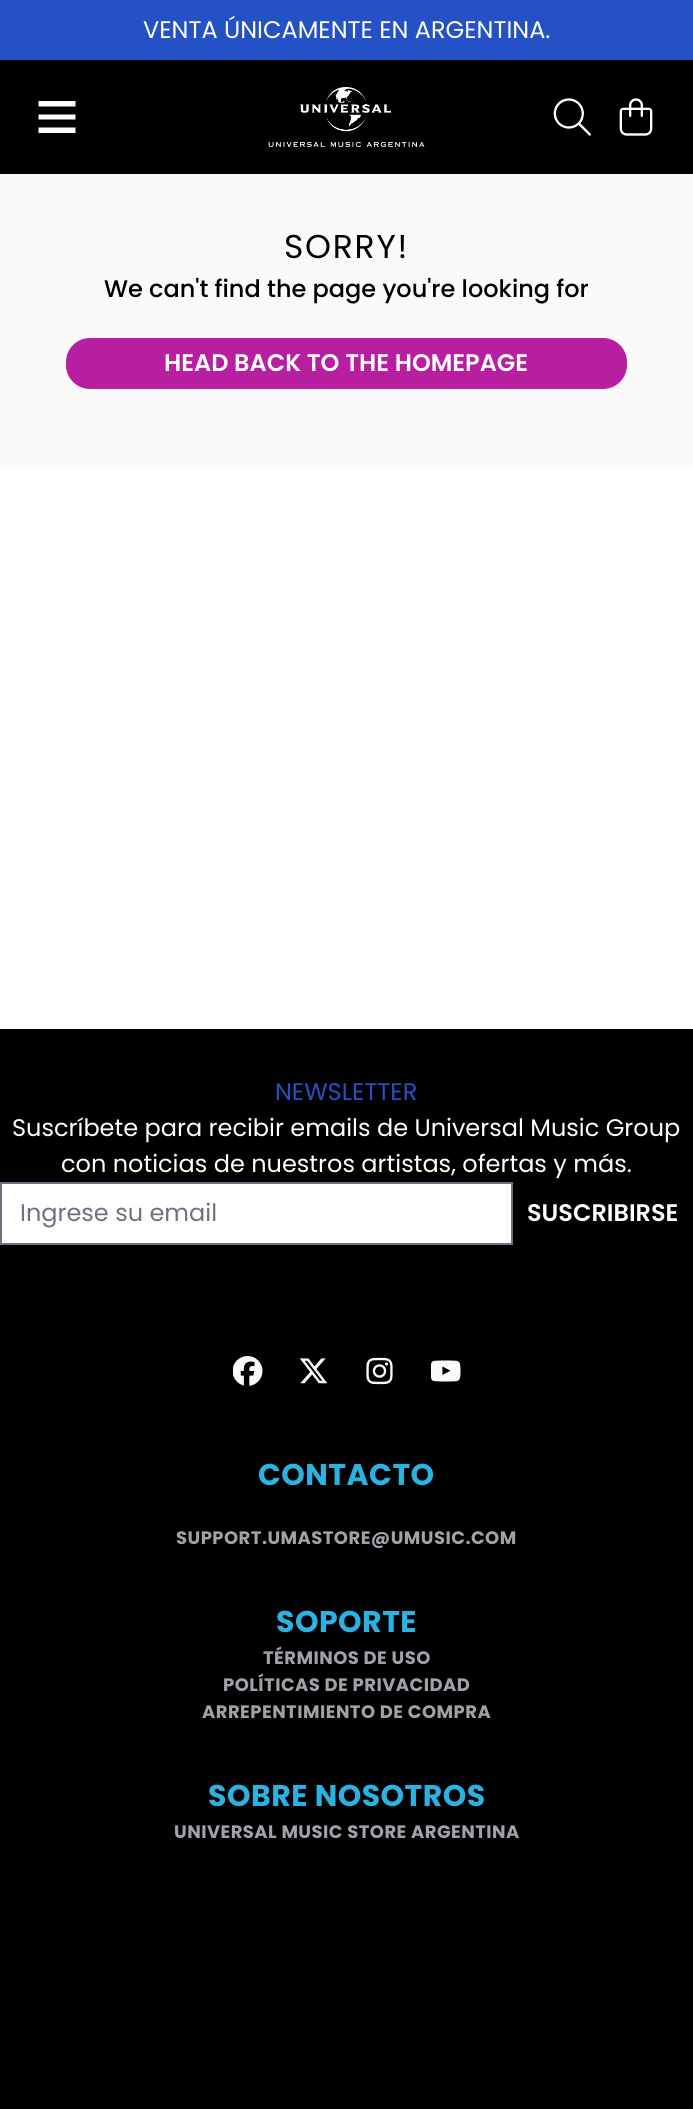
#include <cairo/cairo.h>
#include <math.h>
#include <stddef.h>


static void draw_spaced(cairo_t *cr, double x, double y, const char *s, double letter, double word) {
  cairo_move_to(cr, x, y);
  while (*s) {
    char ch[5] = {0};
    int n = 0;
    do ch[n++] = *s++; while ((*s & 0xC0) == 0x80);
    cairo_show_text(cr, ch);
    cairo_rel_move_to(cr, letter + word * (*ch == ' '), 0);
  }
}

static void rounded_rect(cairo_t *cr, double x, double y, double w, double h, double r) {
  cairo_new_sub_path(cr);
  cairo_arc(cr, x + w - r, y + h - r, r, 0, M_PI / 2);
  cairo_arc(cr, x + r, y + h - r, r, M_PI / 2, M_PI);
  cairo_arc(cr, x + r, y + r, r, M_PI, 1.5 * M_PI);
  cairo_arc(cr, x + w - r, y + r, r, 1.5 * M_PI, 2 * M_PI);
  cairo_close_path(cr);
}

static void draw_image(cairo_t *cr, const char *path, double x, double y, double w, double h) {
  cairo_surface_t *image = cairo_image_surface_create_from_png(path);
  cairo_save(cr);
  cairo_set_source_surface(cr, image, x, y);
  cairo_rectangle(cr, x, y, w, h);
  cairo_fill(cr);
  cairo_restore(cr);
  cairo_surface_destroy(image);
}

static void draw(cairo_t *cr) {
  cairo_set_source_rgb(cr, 1, 1, 1);
  cairo_paint(cr);
  cairo_set_source_rgb(cr, 36 / 255.0, 82 / 255.0, 198 / 255.0);
  cairo_rectangle(cr, 0, 0, 693, 60);
  cairo_fill(cr);
  cairo_set_source_rgb(cr, 0, 0, 0);
  cairo_rectangle(cr, 0, 60, 693, 114);
  cairo_fill(cr);
  cairo_set_source_rgb(cr, 1, 1, 1);
  cairo_new_path(cr);
  cairo_move_to(cr, 38.5, 101);
  cairo_line_to(cr, 75.5, 101);
  cairo_line_to(cr, 75.5, 106.5);
  cairo_line_to(cr, 38.5, 106.5);
  cairo_close_path(cr);
  cairo_move_to(cr, 38.5, 114.5);
  cairo_line_to(cr, 75.5, 114.5);
  cairo_line_to(cr, 75.5, 119.5);
  cairo_line_to(cr, 38.5, 119.5);
  cairo_close_path(cr);
  cairo_move_to(cr, 75.5, 127.5);
  cairo_line_to(cr, 75.5, 133);
  cairo_line_to(cr, 38.5, 133);
  cairo_line_to(cr, 38.5, 127.5);
  cairo_close_path(cr);
  cairo_fill(cr);
  draw_image(cr, "images/1.png", 268, 87, 157, 60);
  draw_image(cr, "images/2.png", 553, 98, 38, 38);
  draw_image(cr, "images/3.png", 619, 98, 34, 38);
  cairo_set_source_rgb(cr, 250 / 255.0, 250 / 255.0, 250 / 255.0);
  cairo_rectangle(cr, 0, 174, 693, 293);
  cairo_fill(cr);
  cairo_set_source_rgb(cr, 183 / 255.0, 31 / 255.0, 160 / 255.0);
  rounded_rect(cr, 67, 339, 559, 49, 23);
  cairo_fill_preserve(cr);
  cairo_stroke(cr);
  cairo_set_source_rgb(cr, 0, 0, 0);
  cairo_rectangle(cr, 0, 1029, 693, 1080);
  cairo_fill(cr);
  cairo_set_source_rgb(cr, 1, 1, 1);
  cairo_rectangle(cr, 1, 1183, 511, 61);
  cairo_fill_preserve(cr);
  cairo_set_source_rgb(cr, 107 / 255.0, 114 / 255.0, 128 / 255.0);
  cairo_stroke(cr);
  draw_image(cr, "images/4.png", 233, 1356, 30, 30);
  draw_image(cr, "images/5.png", 299, 1358, 29, 26);
  draw_image(cr, "images/6.png", 366, 1357, 27, 28);
  draw_image(cr, "images/7.png", 431, 1360, 30, 22);
  cairo_select_font_face(cr, "Poppins", CAIRO_FONT_SLANT_NORMAL, CAIRO_FONT_WEIGHT_NORMAL);
  cairo_set_font_size(cr, 24);
  cairo_set_source_rgb(cr, 1, 1, 1);
  cairo_move_to(cr, 143, 38);
  cairo_show_text(cr, "VENTA ÚNICAMENTE EN ARGENTINA.");
  cairo_set_font_size(cr, 33);
  cairo_set_source_rgb(cr, 0, 0, 0);
  draw_spaced(cr, 284, 258, "SORRY!", 1.75, 0);
  cairo_select_font_face(cr, "Poppins Medium", CAIRO_FONT_SLANT_NORMAL, CAIRO_FONT_WEIGHT_NORMAL);
  cairo_set_font_size(cr, 24);
  cairo_move_to(cr, 104, 297);
  cairo_show_text(cr, "We can't find the page you're looking for");
  cairo_select_font_face(cr, "Poppins SemiBold", CAIRO_FONT_SLANT_NORMAL, CAIRO_FONT_WEIGHT_NORMAL);
  cairo_set_source_rgb(cr, 1, 1, 1);
  cairo_move_to(cr, 164, 371);
  cairo_show_text(cr, "HEAD BACK TO THE HOMEPAGE");
  cairo_select_font_face(cr, "Poppins", CAIRO_FONT_SLANT_NORMAL, CAIRO_FONT_WEIGHT_NORMAL);
  cairo_set_source_rgb(cr, 36 / 255.0, 82 / 255.0, 198 / 255.0);
  cairo_move_to(cr, 275, 1100);
  cairo_show_text(cr, "NEWSLETTER");
  cairo_set_source_rgb(cr, 1, 1, 1);
  cairo_move_to(cr, 12, 1136);
  cairo_show_text(cr, "Suscríbete para recibir emails de Universal Music Group");
  cairo_move_to(cr, 61, 1172);
  cairo_show_text(cr, "con noticias de nuestros artistas, ofertas y más.");
  cairo_set_source_rgb(cr, 107 / 255.0, 114 / 255.0, 128 / 255.0);
  cairo_move_to(cr, 20, 1221);
  cairo_show_text(cr, "Ingrese su email");
  cairo_select_font_face(cr, "Poppins SemiBold", CAIRO_FONT_SLANT_NORMAL, CAIRO_FONT_WEIGHT_NORMAL);
  cairo_set_source_rgb(cr, 1, 1, 1);
  cairo_move_to(cr, 527, 1221);
  cairo_show_text(cr, "SUSCRIBIRSE");
  cairo_select_font_face(cr, "Poppins", CAIRO_FONT_SLANT_NORMAL, CAIRO_FONT_WEIGHT_BOLD);
  cairo_set_font_size(cr, 30);
  cairo_set_source_rgb(cr, 42 / 255.0, 179 / 255.0, 226 / 255.0);
  draw_spaced(cr, 258, 1485, "CONTACTO", 0.45, 0);
  cairo_set_font_size(cr, 18);
  cairo_set_source_rgb(cr, 161 / 255.0, 161 / 255.0, 170 / 255.0);
  draw_spaced(cr, 176, 1544, "SUPPORT.UMASTORE@UMUSIC.COM", 0.45, 0);
  cairo_set_font_size(cr, 30);
  cairo_set_source_rgb(cr, 42 / 255.0, 179 / 255.0, 226 / 255.0);
  draw_spaced(cr, 276, 1632, "SOPORTE", 0.45, 0);
  cairo_set_font_size(cr, 18);
  cairo_set_source_rgb(cr, 161 / 255.0, 161 / 255.0, 170 / 255.0);
  draw_spaced(cr, 263, 1664, "TÉRMINOS DE USO", 0.45, 0);
  draw_spaced(cr, 223, 1691, "POLÍTICAS DE PRIVACIDAD", 0.45, 0);
  draw_spaced(cr, 202, 1718, "ARREPENTIMIENTO DE COMPRA", 0.45, 0);
  cairo_set_font_size(cr, 30);
  cairo_set_source_rgb(cr, 42 / 255.0, 179 / 255.0, 226 / 255.0);
  draw_spaced(cr, 208, 1806, "SOBRE NOSOTROS", 0.45, 0);
  cairo_set_font_size(cr, 18);
  cairo_set_source_rgb(cr, 161 / 255.0, 161 / 255.0, 170 / 255.0);
  draw_spaced(cr, 174, 1838, "UNIVERSAL MUSIC STORE ARGENTINA", 0.45, 0);
}

int main(void) {
  cairo_surface_t *surface = cairo_image_surface_create(CAIRO_FORMAT_RGB24, 693, 2109);
  cairo_t *cr = cairo_create(surface);
  cairo_font_options_t *options = cairo_font_options_create();
  cairo_font_options_set_hint_metrics(options, CAIRO_HINT_METRICS_OFF);
  cairo_font_options_set_hint_style(options, CAIRO_HINT_STYLE_NONE);
  cairo_set_font_options(cr, options);
  cairo_set_miter_limit(cr, 4);
  draw(cr);
  cairo_surface_write_to_png(surface, "out.png");
  cairo_font_options_destroy(options);
  cairo_destroy(cr);
  cairo_surface_destroy(surface);
  return 0;
}
